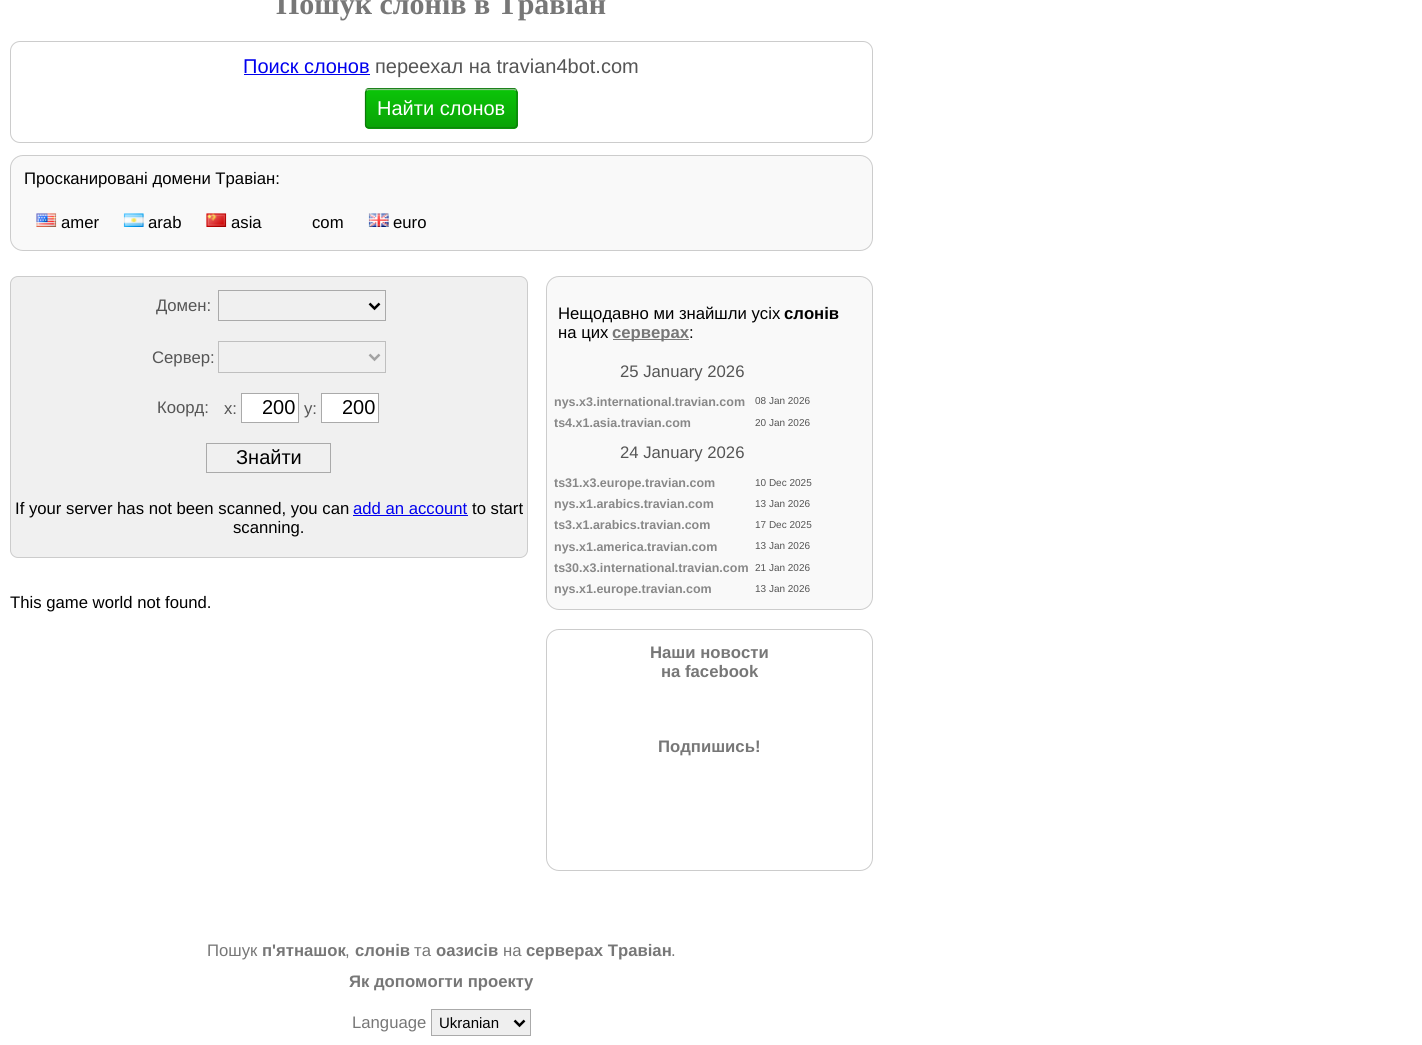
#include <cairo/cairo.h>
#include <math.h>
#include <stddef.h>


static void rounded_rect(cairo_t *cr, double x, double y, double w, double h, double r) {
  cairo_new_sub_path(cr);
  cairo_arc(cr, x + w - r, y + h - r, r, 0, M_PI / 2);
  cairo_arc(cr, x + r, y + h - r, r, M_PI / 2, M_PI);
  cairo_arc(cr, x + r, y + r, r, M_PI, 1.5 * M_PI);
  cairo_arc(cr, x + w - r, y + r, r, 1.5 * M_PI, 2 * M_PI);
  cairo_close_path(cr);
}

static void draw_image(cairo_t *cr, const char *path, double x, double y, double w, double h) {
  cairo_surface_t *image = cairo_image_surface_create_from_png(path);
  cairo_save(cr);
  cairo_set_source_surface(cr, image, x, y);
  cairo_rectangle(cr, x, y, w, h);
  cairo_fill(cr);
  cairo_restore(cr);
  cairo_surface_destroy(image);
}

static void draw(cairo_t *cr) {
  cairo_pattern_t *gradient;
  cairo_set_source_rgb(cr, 1, 1, 1);
  cairo_paint(cr);
  rounded_rect(cr, 10.5, 41.5, 862, 101, 9.5);
  cairo_set_source_rgb(cr, 204 / 255.0, 204 / 255.0, 204 / 255.0);
  cairo_set_line_width(cr, 1);
  cairo_stroke(cr);
  cairo_set_source_rgb(cr, 0, 0, 238 / 255.0);
  cairo_rectangle(cr, 244, 74, 126, 1);
  cairo_fill(cr);
  cairo_set_source_rgb(cr, 14 / 255.0, 120 / 255.0, 12 / 255.0);
  cairo_new_path(cr);
  cairo_move_to(cr, 369, 88);
  cairo_curve_to(cr, 366, 88, 365, 90, 365, 92);
  cairo_curve_to(cr, 365, 90, 367, 89, 369, 89);
  cairo_line_to(cr, 514, 89);
  cairo_curve_to(cr, 516, 89, 518, 90, 518, 92);
  cairo_line_to(cr, 517, 126);
  cairo_line_to(cr, 518, 124);
  cairo_line_to(cr, 518, 92);
  cairo_curve_to(cr, 518, 90, 516, 88, 514, 88);
  cairo_close_path(cr);
  cairo_fill(cr);
  cairo_save(cr);
  rounded_rect(cr, 365, 89, 153, 40, 4);
  cairo_clip(cr);
  gradient = cairo_pattern_create_linear(441, 52, 441, 90);
  cairo_pattern_add_color_stop_rgba(gradient, 0, 11 / 255.0, 196 / 255.0, 8 / 255.0, 1);
  cairo_pattern_add_color_stop_rgba(gradient, 1, 9 / 255.0, 162 / 255.0, 6 / 255.0, 1);
  cairo_set_source(cr, gradient);
  cairo_pattern_destroy(gradient);
  cairo_rectangle(cr, 365, 89, 153, 1);
  cairo_fill(cr);
  gradient = cairo_pattern_create_linear(441, 90, 441, 128);
  cairo_pattern_add_color_stop_rgba(gradient, 0, 11 / 255.0, 196 / 255.0, 8 / 255.0, 1);
  cairo_pattern_add_color_stop_rgba(gradient, 1, 9 / 255.0, 162 / 255.0, 6 / 255.0, 1);
  cairo_set_source(cr, gradient);
  cairo_pattern_destroy(gradient);
  cairo_rectangle(cr, 365, 90, 153, 38);
  cairo_fill(cr);
  gradient = cairo_pattern_create_linear(441, 128, 441, 165);
  cairo_pattern_add_color_stop_rgba(gradient, 0, 11 / 255.0, 196 / 255.0, 8 / 255.0, 1);
  cairo_pattern_add_color_stop_rgba(gradient, 1, 9 / 255.0, 162 / 255.0, 6 / 255.0, 1);
  cairo_set_source(cr, gradient);
  cairo_pattern_destroy(gradient);
  cairo_rectangle(cr, 365, 128, 153, 1);
  cairo_fill(cr);
  cairo_restore(cr);
  cairo_new_path(cr);
  cairo_move_to(cr, 366.5, 90.5);
  cairo_line_to(cr, 368.5, 89.5);
  cairo_line_to(cr, 489.5, 89.5);
  cairo_line_to(cr, 514, 89.5);
  cairo_line_to(cr, 516, 90.5);
  cairo_set_source_rgb(cr, 135 / 255.0, 194 / 255.0, 134 / 255.0);
  cairo_set_line_width(cr, 1.2);
  cairo_stroke(cr);
  cairo_new_path(cr);
  cairo_move_to(cr, 516, 90.5);
  cairo_line_to(cr, 517, 92.5);
  cairo_line_to(cr, 517, 125);
  cairo_line_to(cr, 516, 127);
  cairo_line_to(cr, 514, 128);
  cairo_line_to(cr, 369, 128);
  cairo_line_to(cr, 366.5, 127);
  cairo_line_to(cr, 365.5, 125);
  cairo_line_to(cr, 365.5, 92.5);
  cairo_line_to(cr, 366.5, 90.5);
  cairo_set_source_rgb(cr, 14 / 255.0, 120 / 255.0, 12 / 255.0);
  cairo_stroke(cr);
  cairo_set_source_rgb(cr, 249 / 255.0, 249 / 255.0, 249 / 255.0);
  rounded_rect(cr, 10.5, 155.5, 862, 95, 12.5);
  cairo_fill_preserve(cr);
  cairo_set_source_rgb(cr, 204 / 255.0, 204 / 255.0, 204 / 255.0);
  cairo_set_line_width(cr, 1);
  cairo_stroke(cr);
  draw_image(cr, "images/1.png", 36, 213, 21, 14);
  draw_image(cr, "images/2.png", 123, 213, 21, 14);
  draw_image(cr, "images/3.png", 206, 213, 21, 14);
  draw_image(cr, "images/4.png", 368, 213, 21, 14);
  cairo_set_source_rgb(cr, 240 / 255.0, 240 / 255.0, 240 / 255.0);
  rounded_rect(cr, 10.5, 276.5, 517, 281, 7.5);
  cairo_fill_preserve(cr);
  cairo_set_source_rgb(cr, 204 / 255.0, 204 / 255.0, 204 / 255.0);
  cairo_stroke(cr);
  cairo_rectangle(cr, 218.5, 290.5, 167, 30);
  cairo_set_source_rgb(cr, 170 / 255.0, 170 / 255.0, 170 / 255.0);
  cairo_stroke(cr);
  cairo_new_path(cr);
  cairo_move_to(cr, 369.5, 303.5);
  cairo_line_to(cr, 374.5, 308.5);
  cairo_line_to(cr, 379.5, 303.5);
  cairo_set_source_rgb(cr, 0, 0, 0);
  cairo_set_line_width(cr, 2.5);
  cairo_stroke(cr);
  cairo_rectangle(cr, 218.5, 341.5, 167, 31);
  cairo_set_source_rgb(cr, 191 / 255.0, 191 / 255.0, 191 / 255.0);
  cairo_set_line_width(cr, 1);
  cairo_stroke(cr);
  cairo_new_path(cr);
  cairo_move_to(cr, 369.5, 354.5);
  cairo_line_to(cr, 374.5, 359.5);
  cairo_line_to(cr, 379.5, 354.5);
  cairo_set_source_rgb(cr, 162 / 255.0, 162 / 255.0, 162 / 255.0);
  cairo_set_line_width(cr, 2.5);
  cairo_stroke(cr);
  cairo_set_source_rgb(cr, 1, 1, 1);
  cairo_rectangle(cr, 241.5, 393.5, 57, 29);
  cairo_fill_preserve(cr);
  cairo_set_source_rgb(cr, 170 / 255.0, 170 / 255.0, 170 / 255.0);
  cairo_set_line_width(cr, 1);
  cairo_stroke(cr);
  cairo_set_source_rgb(cr, 1, 1, 1);
  cairo_rectangle(cr, 321.5, 393.5, 57, 29);
  cairo_fill_preserve(cr);
  cairo_set_source_rgb(cr, 170 / 255.0, 170 / 255.0, 170 / 255.0);
  cairo_stroke(cr);
  cairo_rectangle(cr, 206.5, 443.5, 124, 29);
  cairo_stroke(cr);
  cairo_set_source_rgb(cr, 0, 0, 238 / 255.0);
  cairo_rectangle(cr, 353, 515, 115, 1);
  cairo_fill(cr);
  cairo_set_source_rgb(cr, 249 / 255.0, 249 / 255.0, 249 / 255.0);
  rounded_rect(cr, 546.5, 276.5, 326, 333, 12.5);
  cairo_fill_preserve(cr);
  cairo_set_source_rgb(cr, 204 / 255.0, 204 / 255.0, 204 / 255.0);
  cairo_stroke(cr);
  cairo_set_source_rgb(cr, 119 / 255.0, 119 / 255.0, 119 / 255.0);
  cairo_rectangle(cr, 613, 339, 76, 1);
  cairo_fill(cr);
  rounded_rect(cr, 546.5, 629.5, 326, 241, 12.5);
  cairo_set_source_rgb(cr, 204 / 255.0, 204 / 255.0, 204 / 255.0);
  cairo_stroke(cr);
  cairo_set_source_rgb(cr, 239 / 255.0, 239 / 255.0, 239 / 255.0);
  cairo_rectangle(cr, 431.5, 1009.5, 99, 26);
  cairo_fill_preserve(cr);
  cairo_set_source_rgb(cr, 170 / 255.0, 170 / 255.0, 170 / 255.0);
  cairo_stroke(cr);
  cairo_new_path(cr);
  cairo_move_to(cr, 514.5, 1020.5);
  cairo_line_to(cr, 519.5, 1025.5);
  cairo_line_to(cr, 524.5, 1020.5);
  cairo_set_source_rgb(cr, 0, 0, 0);
  cairo_set_line_width(cr, 2.5);
  cairo_stroke(cr);
  cairo_select_font_face(cr, "Liberation Serif", CAIRO_FONT_SLANT_NORMAL, CAIRO_FONT_WEIGHT_BOLD);
  cairo_set_font_size(cr, 30);
  cairo_set_source_rgb(cr, 119 / 255.0, 119 / 255.0, 119 / 255.0);
  cairo_move_to(cr, 276, 14);
  cairo_show_text(cr, "Пошук слонів в Травіан");
  cairo_select_font_face(cr, "Liberation Sans", CAIRO_FONT_SLANT_NORMAL, CAIRO_FONT_WEIGHT_NORMAL);
  cairo_set_font_size(cr, 20);
  cairo_set_source_rgb(cr, 0, 0, 238 / 255.0);
  cairo_move_to(cr, 243, 73);
  cairo_show_text(cr, "Поиск слонов");
  cairo_set_source_rgb(cr, 85 / 255.0, 85 / 255.0, 85 / 255.0);
  cairo_move_to(cr, 375, 73);
  cairo_show_text(cr, "переехал на travian4bot.com");
  cairo_set_source_rgb(cr, 1, 1, 1);
  cairo_move_to(cr, 377, 115);
  cairo_show_text(cr, "Найти слонов");
  cairo_set_font_size(cr, 16.7);
  cairo_set_source_rgb(cr, 0, 0, 0);
  cairo_move_to(cr, 24, 184);
  cairo_show_text(cr, "Просканированi домени Травiан:");
  cairo_move_to(cr, 61, 228);
  cairo_show_text(cr, "amer");
  cairo_move_to(cr, 148, 228);
  cairo_show_text(cr, "arab");
  cairo_move_to(cr, 231, 228);
  cairo_show_text(cr, "asia");
  cairo_move_to(cr, 312, 228);
  cairo_show_text(cr, "com");
  cairo_move_to(cr, 393, 228);
  cairo_show_text(cr, "euro");
  cairo_set_source_rgb(cr, 85 / 255.0, 85 / 255.0, 85 / 255.0);
  cairo_move_to(cr, 156, 311);
  cairo_show_text(cr, "Домен:");
  cairo_move_to(cr, 152, 363);
  cairo_show_text(cr, "Сервер:");
  cairo_move_to(cr, 157, 413);
  cairo_show_text(cr, "Коорд:");
  cairo_move_to(cr, 224, 414);
  cairo_show_text(cr, "x:");
  cairo_set_font_size(cr, 20);
  cairo_set_source_rgb(cr, 0, 0, 0);
  cairo_move_to(cr, 262, 414);
  cairo_show_text(cr, "200");
  cairo_set_font_size(cr, 16.7);
  cairo_set_source_rgb(cr, 85 / 255.0, 85 / 255.0, 85 / 255.0);
  cairo_move_to(cr, 304, 414);
  cairo_show_text(cr, "y:");
  cairo_set_font_size(cr, 20);
  cairo_set_source_rgb(cr, 0, 0, 0);
  cairo_move_to(cr, 342, 414);
  cairo_show_text(cr, "200");
  cairo_move_to(cr, 236, 464);
  cairo_show_text(cr, "Знайти");
  cairo_set_font_size(cr, 16.7);
  cairo_move_to(cr, 15, 514);
  cairo_show_text(cr, "If your server has not been scanned, you can");
  cairo_set_source_rgb(cr, 0, 0, 238 / 255.0);
  cairo_move_to(cr, 353, 514);
  cairo_show_text(cr, "add an account");
  cairo_set_source_rgb(cr, 0, 0, 0);
  cairo_move_to(cr, 472, 514);
  cairo_show_text(cr, "to start");
  cairo_move_to(cr, 233, 533);
  cairo_show_text(cr, "scanning.");
  cairo_move_to(cr, 10, 608);
  cairo_show_text(cr, "This game world not found.");
  cairo_move_to(cr, 558, 319);
  cairo_show_text(cr, "Нещодавно ми знайшли усіх");
  cairo_select_font_face(cr, "Liberation Sans", CAIRO_FONT_SLANT_NORMAL, CAIRO_FONT_WEIGHT_BOLD);
  cairo_move_to(cr, 784, 319);
  cairo_show_text(cr, "слонів");
  cairo_select_font_face(cr, "Liberation Sans", CAIRO_FONT_SLANT_NORMAL, CAIRO_FONT_WEIGHT_NORMAL);
  cairo_move_to(cr, 558, 338);
  cairo_show_text(cr, "на цих");
  cairo_select_font_face(cr, "Liberation Sans", CAIRO_FONT_SLANT_NORMAL, CAIRO_FONT_WEIGHT_BOLD);
  cairo_set_source_rgb(cr, 119 / 255.0, 119 / 255.0, 119 / 255.0);
  cairo_move_to(cr, 612, 338);
  cairo_show_text(cr, "серверах");
  cairo_select_font_face(cr, "Liberation Sans", CAIRO_FONT_SLANT_NORMAL, CAIRO_FONT_WEIGHT_NORMAL);
  cairo_set_source_rgb(cr, 0, 0, 0);
  cairo_move_to(cr, 689, 338);
  cairo_show_text(cr, ":");
  cairo_set_source_rgb(cr, 85 / 255.0, 85 / 255.0, 85 / 255.0);
  cairo_move_to(cr, 620, 377);
  cairo_show_text(cr, "25 January 2026");
  cairo_select_font_face(cr, "Liberation Sans", CAIRO_FONT_SLANT_NORMAL, CAIRO_FONT_WEIGHT_BOLD);
  cairo_set_font_size(cr, 12.5);
  cairo_set_source_rgb(cr, 136 / 255.0, 136 / 255.0, 136 / 255.0);
  cairo_move_to(cr, 554, 406);
  cairo_show_text(cr, "nys.x3.international.travian.com");
  cairo_select_font_face(cr, "Liberation Sans", CAIRO_FONT_SLANT_NORMAL, CAIRO_FONT_WEIGHT_NORMAL);
  cairo_set_font_size(cr, 10);
  cairo_set_source_rgb(cr, 85 / 255.0, 85 / 255.0, 85 / 255.0);
  cairo_move_to(cr, 755, 404);
  cairo_show_text(cr, "08 Jan 2026");
  cairo_select_font_face(cr, "Liberation Sans", CAIRO_FONT_SLANT_NORMAL, CAIRO_FONT_WEIGHT_BOLD);
  cairo_set_font_size(cr, 12.5);
  cairo_set_source_rgb(cr, 136 / 255.0, 136 / 255.0, 136 / 255.0);
  cairo_move_to(cr, 554, 427);
  cairo_show_text(cr, "ts4.x1.asia.travian.com");
  cairo_select_font_face(cr, "Liberation Sans", CAIRO_FONT_SLANT_NORMAL, CAIRO_FONT_WEIGHT_NORMAL);
  cairo_set_font_size(cr, 10);
  cairo_set_source_rgb(cr, 85 / 255.0, 85 / 255.0, 85 / 255.0);
  cairo_move_to(cr, 755, 426);
  cairo_show_text(cr, "20 Jan 2026");
  cairo_set_font_size(cr, 16.7);
  cairo_move_to(cr, 620, 458);
  cairo_show_text(cr, "24 January 2026");
  cairo_select_font_face(cr, "Liberation Sans", CAIRO_FONT_SLANT_NORMAL, CAIRO_FONT_WEIGHT_BOLD);
  cairo_set_font_size(cr, 12.5);
  cairo_set_source_rgb(cr, 136 / 255.0, 136 / 255.0, 136 / 255.0);
  cairo_move_to(cr, 554, 487);
  cairo_show_text(cr, "ts31.x3.europe.travian.com");
  cairo_select_font_face(cr, "Liberation Sans", CAIRO_FONT_SLANT_NORMAL, CAIRO_FONT_WEIGHT_NORMAL);
  cairo_set_font_size(cr, 10);
  cairo_set_source_rgb(cr, 85 / 255.0, 85 / 255.0, 85 / 255.0);
  cairo_move_to(cr, 755, 486);
  cairo_show_text(cr, "10 Dec 2025");
  cairo_select_font_face(cr, "Liberation Sans", CAIRO_FONT_SLANT_NORMAL, CAIRO_FONT_WEIGHT_BOLD);
  cairo_set_font_size(cr, 12.5);
  cairo_set_source_rgb(cr, 136 / 255.0, 136 / 255.0, 136 / 255.0);
  cairo_move_to(cr, 554, 508);
  cairo_show_text(cr, "nys.x1.arabics.travian.com");
  cairo_select_font_face(cr, "Liberation Sans", CAIRO_FONT_SLANT_NORMAL, CAIRO_FONT_WEIGHT_NORMAL);
  cairo_set_font_size(cr, 10);
  cairo_set_source_rgb(cr, 85 / 255.0, 85 / 255.0, 85 / 255.0);
  cairo_move_to(cr, 755, 507);
  cairo_show_text(cr, "13 Jan 2026");
  cairo_select_font_face(cr, "Liberation Sans", CAIRO_FONT_SLANT_NORMAL, CAIRO_FONT_WEIGHT_BOLD);
  cairo_set_font_size(cr, 12.5);
  cairo_set_source_rgb(cr, 136 / 255.0, 136 / 255.0, 136 / 255.0);
  cairo_move_to(cr, 554, 529);
  cairo_show_text(cr, "ts3.x1.arabics.travian.com");
  cairo_select_font_face(cr, "Liberation Sans", CAIRO_FONT_SLANT_NORMAL, CAIRO_FONT_WEIGHT_NORMAL);
  cairo_set_font_size(cr, 10);
  cairo_set_source_rgb(cr, 85 / 255.0, 85 / 255.0, 85 / 255.0);
  cairo_move_to(cr, 755, 528);
  cairo_show_text(cr, "17 Dec 2025");
  cairo_select_font_face(cr, "Liberation Sans", CAIRO_FONT_SLANT_NORMAL, CAIRO_FONT_WEIGHT_BOLD);
  cairo_set_font_size(cr, 12.5);
  cairo_set_source_rgb(cr, 136 / 255.0, 136 / 255.0, 136 / 255.0);
  cairo_move_to(cr, 554, 551);
  cairo_show_text(cr, "nys.x1.america.travian.com");
  cairo_select_font_face(cr, "Liberation Sans", CAIRO_FONT_SLANT_NORMAL, CAIRO_FONT_WEIGHT_NORMAL);
  cairo_set_font_size(cr, 10);
  cairo_set_source_rgb(cr, 85 / 255.0, 85 / 255.0, 85 / 255.0);
  cairo_move_to(cr, 755, 549);
  cairo_show_text(cr, "13 Jan 2026");
  cairo_select_font_face(cr, "Liberation Sans", CAIRO_FONT_SLANT_NORMAL, CAIRO_FONT_WEIGHT_BOLD);
  cairo_set_font_size(cr, 12.5);
  cairo_set_source_rgb(cr, 136 / 255.0, 136 / 255.0, 136 / 255.0);
  cairo_move_to(cr, 554, 572);
  cairo_show_text(cr, "ts30.x3.international.travian.com");
  cairo_select_font_face(cr, "Liberation Sans", CAIRO_FONT_SLANT_NORMAL, CAIRO_FONT_WEIGHT_NORMAL);
  cairo_set_font_size(cr, 10);
  cairo_set_source_rgb(cr, 85 / 255.0, 85 / 255.0, 85 / 255.0);
  cairo_move_to(cr, 755, 571);
  cairo_show_text(cr, "21 Jan 2026");
  cairo_select_font_face(cr, "Liberation Sans", CAIRO_FONT_SLANT_NORMAL, CAIRO_FONT_WEIGHT_BOLD);
  cairo_set_font_size(cr, 12.5);
  cairo_set_source_rgb(cr, 136 / 255.0, 136 / 255.0, 136 / 255.0);
  cairo_move_to(cr, 554, 593);
  cairo_show_text(cr, "nys.x1.europe.travian.com");
  cairo_select_font_face(cr, "Liberation Sans", CAIRO_FONT_SLANT_NORMAL, CAIRO_FONT_WEIGHT_NORMAL);
  cairo_set_font_size(cr, 10);
  cairo_set_source_rgb(cr, 85 / 255.0, 85 / 255.0, 85 / 255.0);
  cairo_move_to(cr, 755, 592);
  cairo_show_text(cr, "13 Jan 2026");
  cairo_select_font_face(cr, "Liberation Sans", CAIRO_FONT_SLANT_NORMAL, CAIRO_FONT_WEIGHT_BOLD);
  cairo_set_font_size(cr, 16.7);
  cairo_set_source_rgb(cr, 119 / 255.0, 119 / 255.0, 119 / 255.0);
  cairo_move_to(cr, 650, 658);
  cairo_show_text(cr, "Наши новости");
  cairo_move_to(cr, 661, 677);
  cairo_show_text(cr, "на facebook");
  cairo_move_to(cr, 658, 752);
  cairo_show_text(cr, "Подпишись!");
  cairo_select_font_face(cr, "Liberation Sans", CAIRO_FONT_SLANT_NORMAL, CAIRO_FONT_WEIGHT_NORMAL);
  cairo_move_to(cr, 207, 956);
  cairo_show_text(cr, "Пошук");
  cairo_select_font_face(cr, "Liberation Sans", CAIRO_FONT_SLANT_NORMAL, CAIRO_FONT_WEIGHT_BOLD);
  cairo_move_to(cr, 262, 956);
  cairo_show_text(cr, "п'ятнашок");
  cairo_select_font_face(cr, "Liberation Sans", CAIRO_FONT_SLANT_NORMAL, CAIRO_FONT_WEIGHT_NORMAL);
  cairo_move_to(cr, 345, 956);
  cairo_show_text(cr, ",");
  cairo_select_font_face(cr, "Liberation Sans", CAIRO_FONT_SLANT_NORMAL, CAIRO_FONT_WEIGHT_BOLD);
  cairo_move_to(cr, 355, 956);
  cairo_show_text(cr, "слонів");
  cairo_select_font_face(cr, "Liberation Sans", CAIRO_FONT_SLANT_NORMAL, CAIRO_FONT_WEIGHT_NORMAL);
  cairo_move_to(cr, 414, 956);
  cairo_show_text(cr, "та");
  cairo_select_font_face(cr, "Liberation Sans", CAIRO_FONT_SLANT_NORMAL, CAIRO_FONT_WEIGHT_BOLD);
  cairo_move_to(cr, 436, 956);
  cairo_show_text(cr, "оазисів");
  cairo_select_font_face(cr, "Liberation Sans", CAIRO_FONT_SLANT_NORMAL, CAIRO_FONT_WEIGHT_NORMAL);
  cairo_move_to(cr, 503, 956);
  cairo_show_text(cr, "на");
  cairo_select_font_face(cr, "Liberation Sans", CAIRO_FONT_SLANT_NORMAL, CAIRO_FONT_WEIGHT_BOLD);
  cairo_move_to(cr, 526, 956);
  cairo_show_text(cr, "серверах Травіан");
  cairo_select_font_face(cr, "Liberation Sans", CAIRO_FONT_SLANT_NORMAL, CAIRO_FONT_WEIGHT_NORMAL);
  cairo_move_to(cr, 671, 956);
  cairo_show_text(cr, ".");
  cairo_select_font_face(cr, "Liberation Sans", CAIRO_FONT_SLANT_NORMAL, CAIRO_FONT_WEIGHT_BOLD);
  cairo_move_to(cr, 349, 987);
  cairo_show_text(cr, "Як допомогти проекту");
  cairo_select_font_face(cr, "Liberation Sans", CAIRO_FONT_SLANT_NORMAL, CAIRO_FONT_WEIGHT_NORMAL);
  cairo_move_to(cr, 352, 1028);
  cairo_show_text(cr, "Language");
  cairo_set_font_size(cr, 15);
  cairo_set_source_rgb(cr, 0, 0, 0);
  cairo_move_to(cr, 439, 1028);
  cairo_show_text(cr, "Ukranian");
}

int main(void) {
  cairo_surface_t *surface = cairo_image_surface_create(CAIRO_FORMAT_RGB24, 1422, 1045);
  cairo_t *cr = cairo_create(surface);
  cairo_font_options_t *options = cairo_font_options_create();
  cairo_font_options_set_hint_metrics(options, CAIRO_HINT_METRICS_OFF);
  cairo_font_options_set_hint_style(options, CAIRO_HINT_STYLE_NONE);
  cairo_set_font_options(cr, options);
  cairo_set_miter_limit(cr, 4);
  draw(cr);
  cairo_surface_write_to_png(surface, "out.png");
  cairo_font_options_destroy(options);
  cairo_destroy(cr);
  cairo_surface_destroy(surface);
  return 0;
}
